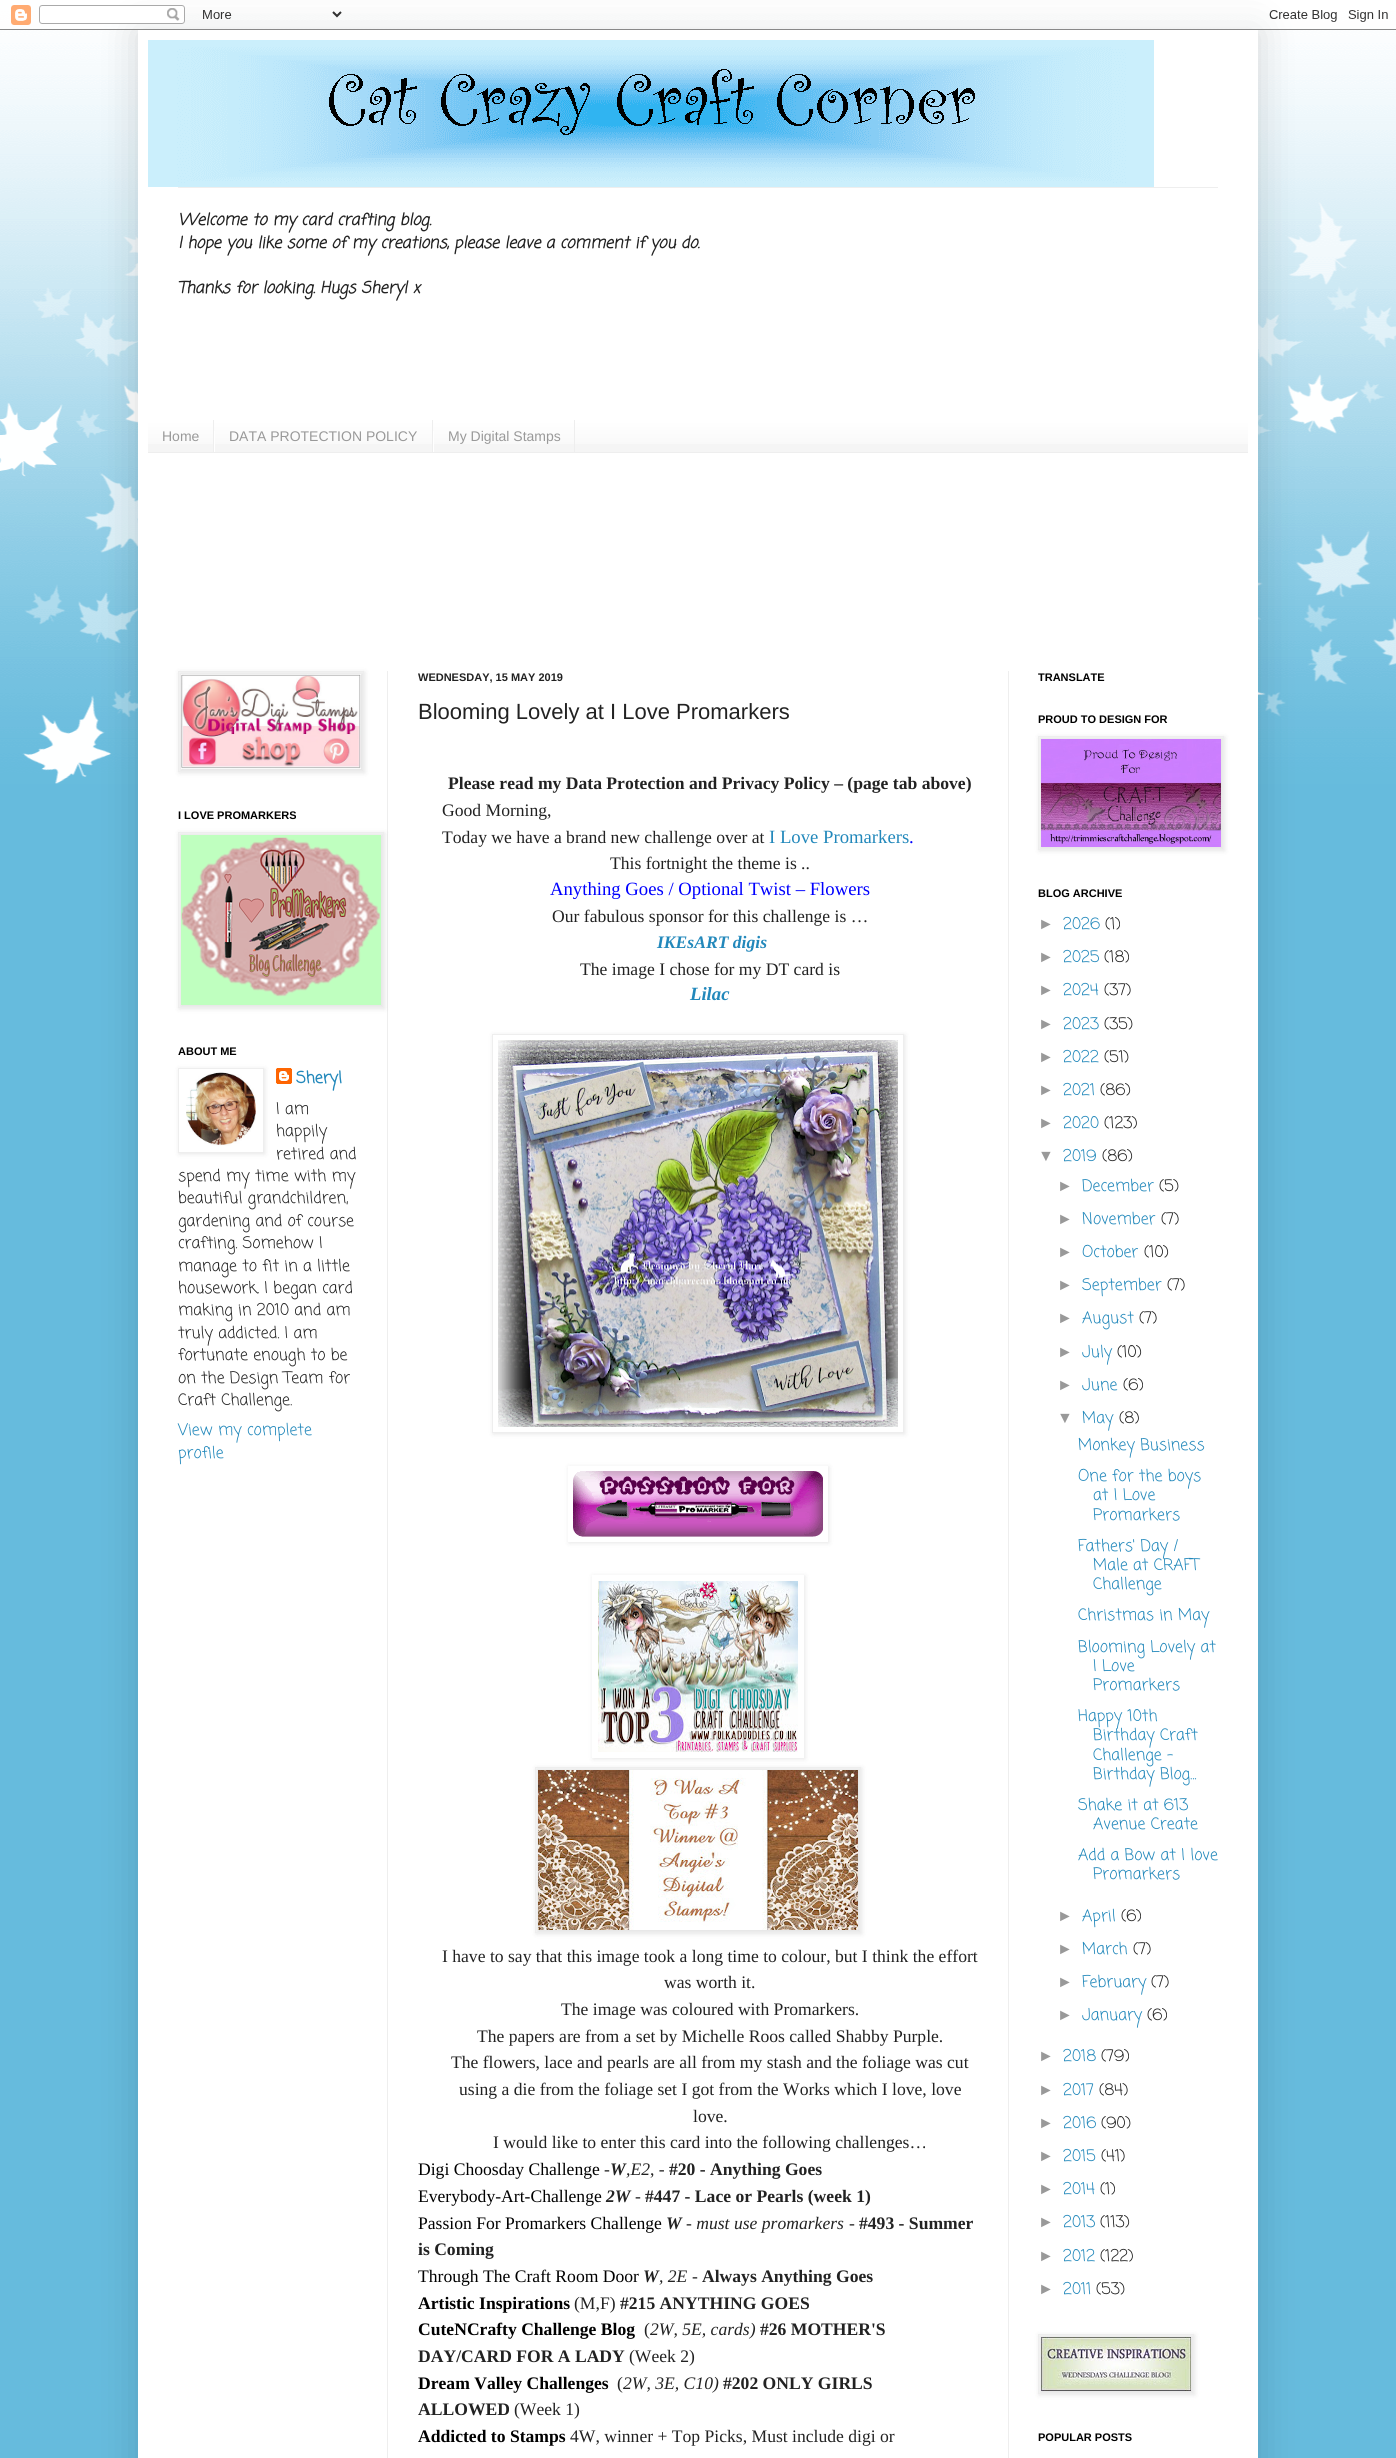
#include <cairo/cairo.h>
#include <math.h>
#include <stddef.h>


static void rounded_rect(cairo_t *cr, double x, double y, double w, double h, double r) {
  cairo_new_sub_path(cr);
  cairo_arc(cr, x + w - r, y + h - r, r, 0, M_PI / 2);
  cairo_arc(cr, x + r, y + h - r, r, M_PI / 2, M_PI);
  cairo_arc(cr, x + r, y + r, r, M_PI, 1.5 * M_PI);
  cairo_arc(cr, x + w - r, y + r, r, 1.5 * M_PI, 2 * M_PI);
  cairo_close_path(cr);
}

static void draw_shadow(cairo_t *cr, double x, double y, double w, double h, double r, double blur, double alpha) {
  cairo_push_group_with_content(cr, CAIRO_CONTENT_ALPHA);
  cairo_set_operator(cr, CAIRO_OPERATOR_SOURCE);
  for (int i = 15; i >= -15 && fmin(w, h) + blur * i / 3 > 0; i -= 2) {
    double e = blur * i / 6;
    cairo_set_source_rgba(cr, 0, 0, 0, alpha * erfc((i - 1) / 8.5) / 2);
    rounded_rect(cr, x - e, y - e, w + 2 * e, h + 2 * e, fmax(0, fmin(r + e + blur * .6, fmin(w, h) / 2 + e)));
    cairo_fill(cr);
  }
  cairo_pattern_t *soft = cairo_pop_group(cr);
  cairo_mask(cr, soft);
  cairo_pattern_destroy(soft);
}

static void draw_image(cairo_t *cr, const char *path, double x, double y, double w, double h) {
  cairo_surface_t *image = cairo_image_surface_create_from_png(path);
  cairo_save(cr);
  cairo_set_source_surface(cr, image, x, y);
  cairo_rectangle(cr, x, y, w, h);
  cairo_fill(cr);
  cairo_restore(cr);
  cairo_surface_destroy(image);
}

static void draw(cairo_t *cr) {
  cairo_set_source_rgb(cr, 102 / 255.0, 187 / 255.0, 221 / 255.0);
  cairo_paint(cr);
  draw_image(cr, "images/1.png", 0, 0, 1396, 784);
  cairo_set_source_rgb(cr, 102 / 255.0, 187 / 255.0, 221 / 255.0);
  cairo_rectangle(cr, 40, 11, 1356, 389);
  cairo_fill(cr);
  draw_image(cr, "images/2.png", 40, 0, 1356, 400);
  cairo_set_source_rgb(cr, 0, 0, 0);
  draw_shadow(cr, 138, 30, 1120, 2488, 0, 20, 0.15);
  draw_image(cr, "images/3.png", 0, 5, 1396, 25);
  cairo_set_source_rgb(cr, 1, 1, 1);
  cairo_rectangle(cr, 138, 30, 1120, 2428);
  cairo_fill(cr);
  draw_image(cr, "images/4.png", 148, 40, 1006, 147);
  cairo_set_source_rgb(cr, 238 / 255.0, 238 / 255.0, 238 / 255.0);
  cairo_rectangle(cr, 178, 187, 1040, 1);
  cairo_fill(cr);
  cairo_set_source_rgb(cr, 245 / 255.0, 245 / 255.0, 245 / 255.0);
  cairo_rectangle(cr, 148, 421, 1100, 31);
  cairo_fill(cr);
  draw_image(cr, "images/5.png", 148, 420, 1100, 24);
  cairo_set_source_rgb(cr, 238 / 255.0, 238 / 255.0, 238 / 255.0);
  cairo_rectangle(cr, 148, 452, 1100, 1);
  cairo_fill(cr);
  cairo_rectangle(cr, 213, 420, 1, 32);
  cairo_fill(cr);
  cairo_rectangle(cr, 432, 420, 1, 32);
  cairo_fill(cr);
  cairo_set_source_rgb(cr, 1, 1, 1);
  cairo_rectangle(cr, 214, 431, 1, 21);
  cairo_fill(cr);
  cairo_set_source_rgb(cr, 238 / 255.0, 238 / 255.0, 238 / 255.0);
  cairo_rectangle(cr, 574, 420, 1, 32);
  cairo_fill(cr);
  cairo_set_source_rgb(cr, 1, 1, 1);
  cairo_rectangle(cr, 433, 431, 1, 21);
  cairo_fill(cr);
  cairo_set_source_rgb(cr, 238 / 255.0, 238 / 255.0, 238 / 255.0);
  cairo_rectangle(cr, 387, 671, 1, 1787);
  cairo_fill(cr);
  cairo_rectangle(cr, 1008, 671, 1, 1787);
  cairo_fill(cr);
  cairo_set_source_rgb(cr, 0, 0, 0);
  draw_shadow(cr, 179, 672, 186, 101, 0, 2.5, 0.1);
  cairo_rectangle(cr, 178.5, 671.5, 185, 100);
  cairo_set_source_rgb(cr, 238 / 255.0, 238 / 255.0, 238 / 255.0);
  cairo_set_line_width(cr, 1);
  cairo_stroke(cr);
  draw_image(cr, "images/6.png", 181, 674, 180, 95);
  cairo_set_source_rgb(cr, 0, 0, 0);
  draw_shadow(cr, 179, 833, 206, 176, 0, 2.5, 0.1);
  cairo_rectangle(cr, 178.5, 832.5, 205, 175);
  cairo_set_source_rgb(cr, 238 / 255.0, 238 / 255.0, 238 / 255.0);
  cairo_stroke(cr);
  draw_image(cr, "images/7.png", 181, 835, 200, 170);
  cairo_save(cr);
  cairo_set_fill_rule(cr, CAIRO_FILL_RULE_EVEN_ODD);
  cairo_new_path(cr);
  cairo_move_to(cr, 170, 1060);
  cairo_line_to(cr, 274, 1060);
  cairo_line_to(cr, 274, 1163);
  cairo_line_to(cr, 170, 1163);
  cairo_close_path(cr);
  cairo_move_to(cr, 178, 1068);
  cairo_line_to(cr, 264, 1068);
  cairo_line_to(cr, 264, 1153);
  cairo_line_to(cr, 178, 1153);
  cairo_close_path(cr);
  cairo_clip(cr);
  cairo_set_source_rgb(cr, 0, 0, 0);
  draw_shadow(cr, 179, 1069, 86, 85, 0, 2.5, 0.1);
  cairo_restore(cr);
  cairo_rectangle(cr, 178.5, 1068.5, 85, 84);
  cairo_stroke(cr);
  draw_image(cr, "images/8.png", 186, 1072, 70, 74);
  draw_image(cr, "images/9.png", 276, 1068, 16, 16);
  cairo_save(cr);
  cairo_set_fill_rule(cr, CAIRO_FILL_RULE_EVEN_ODD);
  cairo_new_path(cr);
  cairo_move_to(cr, 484, 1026);
  cairo_line_to(cr, 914, 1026);
  cairo_line_to(cr, 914, 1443);
  cairo_line_to(cr, 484, 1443);
  cairo_close_path(cr);
  cairo_move_to(cr, 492, 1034);
  cairo_line_to(cr, 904, 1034);
  cairo_line_to(cr, 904, 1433);
  cairo_line_to(cr, 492, 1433);
  cairo_close_path(cr);
  cairo_clip(cr);
  cairo_set_source_rgb(cr, 0, 0, 0);
  draw_shadow(cr, 493, 1035, 412, 399, 0, 2.5, 0.1);
  cairo_restore(cr);
  cairo_rectangle(cr, 492.5, 1034.5, 411, 398);
  cairo_stroke(cr);
  draw_image(cr, "images/10.png", 498, 1040, 400, 387);
  cairo_save(cr);
  cairo_set_fill_rule(cr, CAIRO_FILL_RULE_EVEN_ODD);
  cairo_new_path(cr);
  cairo_move_to(cr, 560, 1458);
  cairo_line_to(cr, 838, 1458);
  cairo_line_to(cr, 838, 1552);
  cairo_line_to(cr, 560, 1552);
  cairo_close_path(cr);
  cairo_move_to(cr, 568, 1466);
  cairo_line_to(cr, 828, 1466);
  cairo_line_to(cr, 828, 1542);
  cairo_line_to(cr, 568, 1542);
  cairo_close_path(cr);
  cairo_clip(cr);
  cairo_set_source_rgb(cr, 0, 0, 0);
  draw_shadow(cr, 569, 1467, 260, 76, 0, 2.5, 0.1);
  cairo_restore(cr);
  draw_image(cr, "images/11.png", 573, 1471, 250, 66);
  cairo_set_source_rgb(cr, 0, 0, 0);
  draw_shadow(cr, 536, 1768, 326, 166, 0, 2.5, 0.1);
  cairo_rectangle(cr, 535.5, 1767.5, 325, 165);
  cairo_set_source_rgb(cr, 238 / 255.0, 238 / 255.0, 238 / 255.0);
  cairo_stroke(cr);
  cairo_save(cr);
  cairo_set_fill_rule(cr, CAIRO_FILL_RULE_EVEN_ODD);
  cairo_new_path(cr);
  cairo_move_to(cr, 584, 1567);
  cairo_line_to(cr, 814, 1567);
  cairo_line_to(cr, 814, 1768);
  cairo_line_to(cr, 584, 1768);
  cairo_close_path(cr);
  cairo_move_to(cr, 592, 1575);
  cairo_line_to(cr, 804, 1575);
  cairo_line_to(cr, 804, 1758);
  cairo_line_to(cr, 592, 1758);
  cairo_close_path(cr);
  cairo_clip(cr);
  cairo_set_source_rgb(cr, 0, 0, 0);
  draw_shadow(cr, 593, 1576, 212, 183, 0, 2.5, 0.1);
  cairo_restore(cr);
  draw_image(cr, "images/12.png", 598, 1581, 200, 171);
  draw_image(cr, "images/13.png", 538, 1770, 320, 160);
  cairo_set_source_rgb(cr, 0, 0, 0);
  draw_shadow(cr, 1039, 737, 186, 114, 0, 2.5, 0.1);
  cairo_rectangle(cr, 1038.5, 736.5, 185, 113);
  cairo_set_source_rgb(cr, 238 / 255.0, 238 / 255.0, 238 / 255.0);
  cairo_stroke(cr);
  draw_image(cr, "images/14.png", 1041, 739, 180, 108);
  cairo_set_source_rgb(cr, 0, 0, 0);
  draw_shadow(cr, 1039, 2335, 156, 60, 0, 2.5, 0.1);
  cairo_rectangle(cr, 1038.5, 2334.5, 155, 59);
  cairo_set_source_rgb(cr, 238 / 255.0, 238 / 255.0, 238 / 255.0);
  cairo_stroke(cr);
  draw_image(cr, "images/15.png", 1041, 2337, 150, 54);
  cairo_select_font_face(cr, "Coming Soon", CAIRO_FONT_SLANT_ITALIC, CAIRO_FONT_WEIGHT_BOLD);
  cairo_set_font_size(cr, 16);
  cairo_set_source_rgb(cr, 34 / 255.0, 34 / 255.0, 34 / 255.0);
  cairo_move_to(cr, 178, 225);
  cairo_show_text(cr, "Welcome to my card crafting blog.");
  cairo_move_to(cr, 178, 248);
  cairo_show_text(cr, "I hope you like some of my creations, please leave a comment if you do.");
  cairo_move_to(cr, 178, 293);
  cairo_show_text(cr, "Thanks for looking. Hugs Sheryl x");
  cairo_select_font_face(cr, "Liberation Sans", CAIRO_FONT_SLANT_NORMAL, CAIRO_FONT_WEIGHT_NORMAL);
  cairo_set_font_size(cr, 14);
  cairo_set_source_rgb(cr, 153 / 255.0, 153 / 255.0, 153 / 255.0);
  cairo_move_to(cr, 162, 441);
  cairo_show_text(cr, "Home");
  cairo_move_to(cr, 229, 441);
  cairo_show_text(cr, "DATA PROTECTION POLICY");
  cairo_move_to(cr, 448, 441);
  cairo_show_text(cr, "My Digital Stamps");
  cairo_select_font_face(cr, "Liberation Sans", CAIRO_FONT_SLANT_NORMAL, CAIRO_FONT_WEIGHT_BOLD);
  cairo_set_font_size(cr, 11);
  cairo_set_source_rgb(cr, 0, 0, 0);
  cairo_move_to(cr, 178, 819);
  cairo_show_text(cr, "I LOVE PROMARKERS");
  cairo_move_to(cr, 178, 1055);
  cairo_show_text(cr, "ABOUT ME");
  cairo_select_font_face(cr, "Coming Soon", CAIRO_FONT_SLANT_NORMAL, CAIRO_FONT_WEIGHT_BOLD);
  cairo_set_font_size(cr, 16);
  cairo_set_source_rgb(cr, 34 / 255.0, 136 / 255.0, 187 / 255.0);
  cairo_move_to(cr, 296, 1083);
  cairo_show_text(cr, "Sheryl");
  cairo_select_font_face(cr, "Coming Soon", CAIRO_FONT_SLANT_NORMAL, CAIRO_FONT_WEIGHT_NORMAL);
  cairo_set_source_rgb(cr, 34 / 255.0, 34 / 255.0, 34 / 255.0);
  cairo_move_to(cr, 276, 1114);
  cairo_show_text(cr, "I am");
  cairo_move_to(cr, 276, 1136);
  cairo_show_text(cr, "happily");
  cairo_move_to(cr, 276, 1159);
  cairo_show_text(cr, "retired and");
  cairo_move_to(cr, 178, 1181);
  cairo_show_text(cr, "spend my time with my");
  cairo_move_to(cr, 178, 1203);
  cairo_show_text(cr, "beautiful grandchildren,");
  cairo_move_to(cr, 178, 1226);
  cairo_show_text(cr, "gardening and of course");
  cairo_move_to(cr, 178, 1248);
  cairo_show_text(cr, "crafting. Somehow I");
  cairo_move_to(cr, 178, 1271);
  cairo_show_text(cr, "manage to fit in a little");
  cairo_move_to(cr, 178, 1293);
  cairo_show_text(cr, "housework. I began card");
  cairo_move_to(cr, 178, 1315);
  cairo_show_text(cr, "making in 2010 and am");
  cairo_move_to(cr, 178, 1338);
  cairo_show_text(cr, "truly addicted. I am");
  cairo_move_to(cr, 178, 1360);
  cairo_show_text(cr, "fortunate enough to be");
  cairo_move_to(cr, 178, 1383);
  cairo_show_text(cr, "on the Design Team for");
  cairo_move_to(cr, 178, 1405);
  cairo_show_text(cr, "Craft Challenge.");
  cairo_set_source_rgb(cr, 34 / 255.0, 136 / 255.0, 187 / 255.0);
  cairo_move_to(cr, 178, 1435);
  cairo_show_text(cr, "View my complete");
  cairo_move_to(cr, 178, 1458);
  cairo_show_text(cr, "profile");
  cairo_select_font_face(cr, "Liberation Sans", CAIRO_FONT_SLANT_NORMAL, CAIRO_FONT_WEIGHT_BOLD);
  cairo_set_font_size(cr, 11);
  cairo_set_source_rgb(cr, 34 / 255.0, 34 / 255.0, 34 / 255.0);
  cairo_move_to(cr, 418, 681);
  cairo_show_text(cr, "WEDNESDAY, 15 MAY 2019");
  cairo_select_font_face(cr, "Liberation Sans", CAIRO_FONT_SLANT_NORMAL, CAIRO_FONT_WEIGHT_NORMAL);
  cairo_set_font_size(cr, 22);
  cairo_move_to(cr, 418, 719);
  cairo_show_text(cr, "Blooming Lovely at I Love Promarkers");
  cairo_select_font_face(cr, "Liberation Serif", CAIRO_FONT_SLANT_NORMAL, CAIRO_FONT_WEIGHT_BOLD);
  cairo_set_font_size(cr, 17.6);
  cairo_move_to(cr, 448, 789);
  cairo_show_text(cr, "Please read my Data Protection and Privacy Policy – (page tab above)");
  cairo_select_font_face(cr, "Liberation Serif", CAIRO_FONT_SLANT_NORMAL, CAIRO_FONT_WEIGHT_NORMAL);
  cairo_move_to(cr, 442, 816);
  cairo_show_text(cr, "Good Morning,");
  cairo_move_to(cr, 442, 843);
  cairo_show_text(cr, "Today we have a brand new challenge over at");
  cairo_set_font_size(cr, 18.7);
  cairo_set_source_rgb(cr, 34 / 255.0, 136 / 255.0, 187 / 255.0);
  cairo_move_to(cr, 769, 843);
  cairo_show_text(cr, "I Love Promarkers");
  cairo_set_source_rgb(cr, 0, 0, 1);
  cairo_move_to(cr, 909, 843);
  cairo_show_text(cr, ".");
  cairo_set_font_size(cr, 17.6);
  cairo_set_source_rgb(cr, 34 / 255.0, 34 / 255.0, 34 / 255.0);
  cairo_move_to(cr, 610, 869);
  cairo_show_text(cr, "This fortnight the theme is ..");
  cairo_set_font_size(cr, 18.7);
  cairo_set_source_rgb(cr, 0, 0, 1);
  cairo_move_to(cr, 550, 895);
  cairo_show_text(cr, "Anything Goes / Optional Twist – Flowers");
  cairo_set_font_size(cr, 17.6);
  cairo_set_source_rgb(cr, 34 / 255.0, 34 / 255.0, 34 / 255.0);
  cairo_move_to(cr, 552, 922);
  cairo_show_text(cr, "Our fabulous sponsor for this challenge is …");
  cairo_select_font_face(cr, "Liberation Serif", CAIRO_FONT_SLANT_ITALIC, CAIRO_FONT_WEIGHT_BOLD);
  cairo_set_source_rgb(cr, 34 / 255.0, 136 / 255.0, 187 / 255.0);
  cairo_move_to(cr, 657, 948);
  cairo_show_text(cr, "IKEsART digis");
  cairo_select_font_face(cr, "Liberation Serif", CAIRO_FONT_SLANT_NORMAL, CAIRO_FONT_WEIGHT_NORMAL);
  cairo_set_source_rgb(cr, 34 / 255.0, 34 / 255.0, 34 / 255.0);
  cairo_move_to(cr, 580, 975);
  cairo_show_text(cr, "The image I chose for my DT card is");
  cairo_select_font_face(cr, "Liberation Serif", CAIRO_FONT_SLANT_ITALIC, CAIRO_FONT_WEIGHT_BOLD);
  cairo_set_font_size(cr, 18.7);
  cairo_set_source_rgb(cr, 34 / 255.0, 136 / 255.0, 187 / 255.0);
  cairo_move_to(cr, 690, 1000);
  cairo_show_text(cr, "Lilac");
  cairo_select_font_face(cr, "Liberation Serif", CAIRO_FONT_SLANT_NORMAL, CAIRO_FONT_WEIGHT_NORMAL);
  cairo_set_font_size(cr, 17.6);
  cairo_set_source_rgb(cr, 34 / 255.0, 34 / 255.0, 34 / 255.0);
  cairo_move_to(cr, 442, 1962);
  cairo_show_text(cr, "I have to say that this image took a long time to colour, but I think the effort");
  cairo_move_to(cr, 664, 1988);
  cairo_show_text(cr, "was worth it.");
  cairo_move_to(cr, 561, 2015);
  cairo_show_text(cr, "The image was coloured with Promarkers.");
  cairo_move_to(cr, 477, 2042);
  cairo_show_text(cr, "The papers are from a set by Michelle Roos called Shabby Purple.");
  cairo_move_to(cr, 451, 2068);
  cairo_show_text(cr, "The flowers, lace and pearls are all from my stash and the foliage was cut");
  cairo_move_to(cr, 459, 2095);
  cairo_show_text(cr, "using a die from the foliage set I got from the Works which I love, love");
  cairo_move_to(cr, 693, 2122);
  cairo_show_text(cr, "love.");
  cairo_move_to(cr, 493, 2148);
  cairo_show_text(cr, "I would like to enter this card into the following challenges…");
  cairo_set_source_rgb(cr, 0, 0, 0);
  cairo_move_to(cr, 418, 2175);
  cairo_show_text(cr, "Digi Choosday Challenge");
  cairo_set_source_rgb(cr, 34 / 255.0, 34 / 255.0, 34 / 255.0);
  cairo_move_to(cr, 604, 2175);
  cairo_show_text(cr, "-");
  cairo_select_font_face(cr, "Liberation Serif", CAIRO_FONT_SLANT_ITALIC, CAIRO_FONT_WEIGHT_BOLD);
  cairo_move_to(cr, 610, 2175);
  cairo_show_text(cr, "W");
  cairo_select_font_face(cr, "Liberation Serif", CAIRO_FONT_SLANT_ITALIC, CAIRO_FONT_WEIGHT_NORMAL);
  cairo_move_to(cr, 626, 2175);
  cairo_show_text(cr, ",E2");
  cairo_select_font_face(cr, "Liberation Serif", CAIRO_FONT_SLANT_NORMAL, CAIRO_FONT_WEIGHT_NORMAL);
  cairo_move_to(cr, 650, 2175);
  cairo_show_text(cr, ", -");
  cairo_select_font_face(cr, "Liberation Serif", CAIRO_FONT_SLANT_NORMAL, CAIRO_FONT_WEIGHT_BOLD);
  cairo_move_to(cr, 669, 2175);
  cairo_show_text(cr, "#20 - Anything Goes");
  cairo_select_font_face(cr, "Liberation Serif", CAIRO_FONT_SLANT_NORMAL, CAIRO_FONT_WEIGHT_NORMAL);
  cairo_set_source_rgb(cr, 0, 0, 0);
  cairo_move_to(cr, 418, 2202);
  cairo_show_text(cr, "Everybody-Art-Challenge");
  cairo_select_font_face(cr, "Liberation Serif", CAIRO_FONT_SLANT_ITALIC, CAIRO_FONT_WEIGHT_BOLD);
  cairo_set_source_rgb(cr, 34 / 255.0, 34 / 255.0, 34 / 255.0);
  cairo_move_to(cr, 606, 2202);
  cairo_show_text(cr, "2W");
  cairo_select_font_face(cr, "Liberation Serif", CAIRO_FONT_SLANT_NORMAL, CAIRO_FONT_WEIGHT_NORMAL);
  cairo_move_to(cr, 635, 2202);
  cairo_show_text(cr, "-");
  cairo_select_font_face(cr, "Liberation Serif", CAIRO_FONT_SLANT_NORMAL, CAIRO_FONT_WEIGHT_BOLD);
  cairo_move_to(cr, 645, 2202);
  cairo_show_text(cr, "#447 - Lace or Pearls (week 1)");
  cairo_select_font_face(cr, "Liberation Serif", CAIRO_FONT_SLANT_NORMAL, CAIRO_FONT_WEIGHT_NORMAL);
  cairo_set_source_rgb(cr, 0, 0, 0);
  cairo_move_to(cr, 418, 2229);
  cairo_show_text(cr, "Passion For Promarkers Challenge");
  cairo_select_font_face(cr, "Liberation Serif", CAIRO_FONT_SLANT_ITALIC, CAIRO_FONT_WEIGHT_BOLD);
  cairo_set_source_rgb(cr, 34 / 255.0, 34 / 255.0, 34 / 255.0);
  cairo_move_to(cr, 666, 2229);
  cairo_show_text(cr, "W");
  cairo_select_font_face(cr, "Liberation Serif", CAIRO_FONT_SLANT_ITALIC, CAIRO_FONT_WEIGHT_NORMAL);
  cairo_move_to(cr, 686, 2229);
  cairo_show_text(cr, "- must use promarkers");
  cairo_select_font_face(cr, "Liberation Serif", CAIRO_FONT_SLANT_NORMAL, CAIRO_FONT_WEIGHT_NORMAL);
  cairo_move_to(cr, 849, 2229);
  cairo_show_text(cr, "-");
  cairo_select_font_face(cr, "Liberation Serif", CAIRO_FONT_SLANT_NORMAL, CAIRO_FONT_WEIGHT_BOLD);
  cairo_move_to(cr, 859, 2229);
  cairo_show_text(cr, "#493 - Summer");
  cairo_move_to(cr, 418, 2255);
  cairo_show_text(cr, "is Coming");
  cairo_select_font_face(cr, "Liberation Serif", CAIRO_FONT_SLANT_NORMAL, CAIRO_FONT_WEIGHT_NORMAL);
  cairo_set_source_rgb(cr, 0, 0, 0);
  cairo_move_to(cr, 418, 2282);
  cairo_show_text(cr, "Through The Craft Room Door");
  cairo_select_font_face(cr, "Liberation Serif", CAIRO_FONT_SLANT_ITALIC, CAIRO_FONT_WEIGHT_BOLD);
  cairo_set_source_rgb(cr, 34 / 255.0, 34 / 255.0, 34 / 255.0);
  cairo_move_to(cr, 643, 2282);
  cairo_show_text(cr, "W");
  cairo_select_font_face(cr, "Liberation Serif", CAIRO_FONT_SLANT_ITALIC, CAIRO_FONT_WEIGHT_NORMAL);
  cairo_move_to(cr, 659, 2282);
  cairo_show_text(cr, ", 2E");
  cairo_select_font_face(cr, "Liberation Serif", CAIRO_FONT_SLANT_NORMAL, CAIRO_FONT_WEIGHT_NORMAL);
  cairo_move_to(cr, 692, 2282);
  cairo_show_text(cr, "-");
  cairo_select_font_face(cr, "Liberation Serif", CAIRO_FONT_SLANT_NORMAL, CAIRO_FONT_WEIGHT_BOLD);
  cairo_move_to(cr, 702, 2282);
  cairo_show_text(cr, "Always Anything Goes");
  cairo_set_source_rgb(cr, 0, 0, 0);
  cairo_move_to(cr, 418, 2309);
  cairo_show_text(cr, "Artistic Inspirations");
  cairo_select_font_face(cr, "Liberation Serif", CAIRO_FONT_SLANT_NORMAL, CAIRO_FONT_WEIGHT_NORMAL);
  cairo_set_source_rgb(cr, 34 / 255.0, 34 / 255.0, 34 / 255.0);
  cairo_move_to(cr, 574, 2309);
  cairo_show_text(cr, "(M,F)");
  cairo_select_font_face(cr, "Liberation Serif", CAIRO_FONT_SLANT_NORMAL, CAIRO_FONT_WEIGHT_BOLD);
  cairo_move_to(cr, 620, 2309);
  cairo_show_text(cr, "#215 ANYTHING GOES");
  cairo_set_source_rgb(cr, 0, 0, 0);
  cairo_move_to(cr, 418, 2335);
  cairo_show_text(cr, "CuteNCrafty Challenge Blog");
  cairo_select_font_face(cr, "Liberation Serif", CAIRO_FONT_SLANT_NORMAL, CAIRO_FONT_WEIGHT_NORMAL);
  cairo_set_source_rgb(cr, 34 / 255.0, 34 / 255.0, 34 / 255.0);
  cairo_move_to(cr, 644, 2335);
  cairo_show_text(cr, "(");
  cairo_select_font_face(cr, "Liberation Serif", CAIRO_FONT_SLANT_ITALIC, CAIRO_FONT_WEIGHT_NORMAL);
  cairo_move_to(cr, 650, 2335);
  cairo_show_text(cr, "2W, 5E, cards)");
  cairo_select_font_face(cr, "Liberation Serif", CAIRO_FONT_SLANT_NORMAL, CAIRO_FONT_WEIGHT_BOLD);
  cairo_move_to(cr, 760, 2335);
  cairo_show_text(cr, "#26 MOTHER'S");
  cairo_move_to(cr, 418, 2362);
  cairo_show_text(cr, "DAY/CARD FOR A LADY");
  cairo_select_font_face(cr, "Liberation Serif", CAIRO_FONT_SLANT_NORMAL, CAIRO_FONT_WEIGHT_NORMAL);
  cairo_move_to(cr, 629, 2362);
  cairo_show_text(cr, "(Week 2)");
  cairo_select_font_face(cr, "Liberation Serif", CAIRO_FONT_SLANT_NORMAL, CAIRO_FONT_WEIGHT_BOLD);
  cairo_set_source_rgb(cr, 0, 0, 0);
  cairo_move_to(cr, 418, 2389);
  cairo_show_text(cr, "Dream Valley Challenges");
  cairo_select_font_face(cr, "Liberation Serif", CAIRO_FONT_SLANT_NORMAL, CAIRO_FONT_WEIGHT_NORMAL);
  cairo_set_source_rgb(cr, 34 / 255.0, 34 / 255.0, 34 / 255.0);
  cairo_move_to(cr, 617, 2389);
  cairo_show_text(cr, "(");
  cairo_select_font_face(cr, "Liberation Serif", CAIRO_FONT_SLANT_ITALIC, CAIRO_FONT_WEIGHT_NORMAL);
  cairo_move_to(cr, 623, 2389);
  cairo_show_text(cr, "2W, 3E, C10)");
  cairo_select_font_face(cr, "Liberation Serif", CAIRO_FONT_SLANT_NORMAL, CAIRO_FONT_WEIGHT_BOLD);
  cairo_move_to(cr, 723, 2389);
  cairo_show_text(cr, "#202 ONLY GIRLS");
  cairo_move_to(cr, 418, 2415);
  cairo_show_text(cr, "ALLOWED");
  cairo_select_font_face(cr, "Liberation Serif", CAIRO_FONT_SLANT_NORMAL, CAIRO_FONT_WEIGHT_NORMAL);
  cairo_move_to(cr, 514, 2415);
  cairo_show_text(cr, "(Week 1)");
  cairo_select_font_face(cr, "Liberation Serif", CAIRO_FONT_SLANT_NORMAL, CAIRO_FONT_WEIGHT_BOLD);
  cairo_set_source_rgb(cr, 0, 0, 0);
  cairo_move_to(cr, 418, 2442);
  cairo_show_text(cr, "Addicted to Stamps");
  cairo_select_font_face(cr, "Liberation Serif", CAIRO_FONT_SLANT_NORMAL, CAIRO_FONT_WEIGHT_NORMAL);
  cairo_set_source_rgb(cr, 34 / 255.0, 34 / 255.0, 34 / 255.0);
  cairo_move_to(cr, 570, 2442);
  cairo_show_text(cr, "4W, winner + Top Picks, Must include digi or");
  cairo_select_font_face(cr, "Liberation Sans", CAIRO_FONT_SLANT_NORMAL, CAIRO_FONT_WEIGHT_BOLD);
  cairo_set_font_size(cr, 11);
  cairo_set_source_rgb(cr, 0, 0, 0);
  cairo_move_to(cr, 1038, 681);
  cairo_show_text(cr, "TRANSLATE");
  cairo_move_to(cr, 1038, 723);
  cairo_show_text(cr, "PROUD TO DESIGN FOR");
  cairo_move_to(cr, 1038, 897);
  cairo_show_text(cr, "BLOG ARCHIVE");
  cairo_select_font_face(cr, "Liberation Sans", CAIRO_FONT_SLANT_NORMAL, CAIRO_FONT_WEIGHT_NORMAL);
  cairo_set_font_size(cr, 16);
  cairo_set_source_rgb(cr, 153 / 255.0, 153 / 255.0, 153 / 255.0);
  cairo_move_to(cr, 1038, 929);
  cairo_show_text(cr, "►");
  cairo_select_font_face(cr, "Coming Soon", CAIRO_FONT_SLANT_NORMAL, CAIRO_FONT_WEIGHT_NORMAL);
  cairo_set_source_rgb(cr, 34 / 255.0, 136 / 255.0, 187 / 255.0);
  cairo_move_to(cr, 1063, 929);
  cairo_show_text(cr, "2026");
  cairo_set_source_rgb(cr, 34 / 255.0, 34 / 255.0, 34 / 255.0);
  cairo_move_to(cr, 1105, 929);
  cairo_show_text(cr, "(1)");
  cairo_select_font_face(cr, "Liberation Sans", CAIRO_FONT_SLANT_NORMAL, CAIRO_FONT_WEIGHT_NORMAL);
  cairo_set_source_rgb(cr, 153 / 255.0, 153 / 255.0, 153 / 255.0);
  cairo_move_to(cr, 1038, 962);
  cairo_show_text(cr, "►");
  cairo_select_font_face(cr, "Coming Soon", CAIRO_FONT_SLANT_NORMAL, CAIRO_FONT_WEIGHT_NORMAL);
  cairo_set_source_rgb(cr, 34 / 255.0, 136 / 255.0, 187 / 255.0);
  cairo_move_to(cr, 1063, 962);
  cairo_show_text(cr, "2025");
  cairo_set_source_rgb(cr, 34 / 255.0, 34 / 255.0, 34 / 255.0);
  cairo_move_to(cr, 1104, 962);
  cairo_show_text(cr, "(18)");
  cairo_select_font_face(cr, "Liberation Sans", CAIRO_FONT_SLANT_NORMAL, CAIRO_FONT_WEIGHT_NORMAL);
  cairo_set_source_rgb(cr, 153 / 255.0, 153 / 255.0, 153 / 255.0);
  cairo_move_to(cr, 1038, 995);
  cairo_show_text(cr, "►");
  cairo_select_font_face(cr, "Coming Soon", CAIRO_FONT_SLANT_NORMAL, CAIRO_FONT_WEIGHT_NORMAL);
  cairo_set_source_rgb(cr, 34 / 255.0, 136 / 255.0, 187 / 255.0);
  cairo_move_to(cr, 1063, 995);
  cairo_show_text(cr, "2024");
  cairo_set_source_rgb(cr, 34 / 255.0, 34 / 255.0, 34 / 255.0);
  cairo_move_to(cr, 1104, 995);
  cairo_show_text(cr, "(37)");
  cairo_select_font_face(cr, "Liberation Sans", CAIRO_FONT_SLANT_NORMAL, CAIRO_FONT_WEIGHT_NORMAL);
  cairo_set_source_rgb(cr, 153 / 255.0, 153 / 255.0, 153 / 255.0);
  cairo_move_to(cr, 1038, 1029);
  cairo_show_text(cr, "►");
  cairo_select_font_face(cr, "Coming Soon", CAIRO_FONT_SLANT_NORMAL, CAIRO_FONT_WEIGHT_NORMAL);
  cairo_set_source_rgb(cr, 34 / 255.0, 136 / 255.0, 187 / 255.0);
  cairo_move_to(cr, 1063, 1029);
  cairo_show_text(cr, "2023");
  cairo_set_source_rgb(cr, 34 / 255.0, 34 / 255.0, 34 / 255.0);
  cairo_move_to(cr, 1104, 1029);
  cairo_show_text(cr, "(35)");
  cairo_select_font_face(cr, "Liberation Sans", CAIRO_FONT_SLANT_NORMAL, CAIRO_FONT_WEIGHT_NORMAL);
  cairo_set_source_rgb(cr, 153 / 255.0, 153 / 255.0, 153 / 255.0);
  cairo_move_to(cr, 1038, 1062);
  cairo_show_text(cr, "►");
  cairo_select_font_face(cr, "Coming Soon", CAIRO_FONT_SLANT_NORMAL, CAIRO_FONT_WEIGHT_NORMAL);
  cairo_set_source_rgb(cr, 34 / 255.0, 136 / 255.0, 187 / 255.0);
  cairo_move_to(cr, 1063, 1062);
  cairo_show_text(cr, "2022");
  cairo_set_source_rgb(cr, 34 / 255.0, 34 / 255.0, 34 / 255.0);
  cairo_move_to(cr, 1104, 1062);
  cairo_show_text(cr, "(51)");
  cairo_select_font_face(cr, "Liberation Sans", CAIRO_FONT_SLANT_NORMAL, CAIRO_FONT_WEIGHT_NORMAL);
  cairo_set_source_rgb(cr, 153 / 255.0, 153 / 255.0, 153 / 255.0);
  cairo_move_to(cr, 1038, 1095);
  cairo_show_text(cr, "►");
  cairo_select_font_face(cr, "Coming Soon", CAIRO_FONT_SLANT_NORMAL, CAIRO_FONT_WEIGHT_NORMAL);
  cairo_set_source_rgb(cr, 34 / 255.0, 136 / 255.0, 187 / 255.0);
  cairo_move_to(cr, 1063, 1095);
  cairo_show_text(cr, "2021");
  cairo_set_source_rgb(cr, 34 / 255.0, 34 / 255.0, 34 / 255.0);
  cairo_move_to(cr, 1100, 1095);
  cairo_show_text(cr, "(86)");
  cairo_select_font_face(cr, "Liberation Sans", CAIRO_FONT_SLANT_NORMAL, CAIRO_FONT_WEIGHT_NORMAL);
  cairo_set_source_rgb(cr, 153 / 255.0, 153 / 255.0, 153 / 255.0);
  cairo_move_to(cr, 1038, 1128);
  cairo_show_text(cr, "►");
  cairo_select_font_face(cr, "Coming Soon", CAIRO_FONT_SLANT_NORMAL, CAIRO_FONT_WEIGHT_NORMAL);
  cairo_set_source_rgb(cr, 34 / 255.0, 136 / 255.0, 187 / 255.0);
  cairo_move_to(cr, 1063, 1128);
  cairo_show_text(cr, "2020");
  cairo_set_source_rgb(cr, 34 / 255.0, 34 / 255.0, 34 / 255.0);
  cairo_move_to(cr, 1104, 1128);
  cairo_show_text(cr, "(123)");
  cairo_select_font_face(cr, "Liberation Sans", CAIRO_FONT_SLANT_NORMAL, CAIRO_FONT_WEIGHT_NORMAL);
  cairo_set_source_rgb(cr, 153 / 255.0, 153 / 255.0, 153 / 255.0);
  cairo_move_to(cr, 1038, 1161);
  cairo_show_text(cr, "▼");
  cairo_select_font_face(cr, "Coming Soon", CAIRO_FONT_SLANT_NORMAL, CAIRO_FONT_WEIGHT_NORMAL);
  cairo_set_source_rgb(cr, 34 / 255.0, 136 / 255.0, 187 / 255.0);
  cairo_move_to(cr, 1063, 1161);
  cairo_show_text(cr, "2019");
  cairo_set_source_rgb(cr, 34 / 255.0, 34 / 255.0, 34 / 255.0);
  cairo_move_to(cr, 1102, 1161);
  cairo_show_text(cr, "(86)");
  cairo_select_font_face(cr, "Liberation Sans", CAIRO_FONT_SLANT_NORMAL, CAIRO_FONT_WEIGHT_NORMAL);
  cairo_set_source_rgb(cr, 153 / 255.0, 153 / 255.0, 153 / 255.0);
  cairo_move_to(cr, 1057, 1191);
  cairo_show_text(cr, "►");
  cairo_select_font_face(cr, "Coming Soon", CAIRO_FONT_SLANT_NORMAL, CAIRO_FONT_WEIGHT_NORMAL);
  cairo_set_source_rgb(cr, 34 / 255.0, 136 / 255.0, 187 / 255.0);
  cairo_move_to(cr, 1082, 1191);
  cairo_show_text(cr, "December");
  cairo_set_source_rgb(cr, 34 / 255.0, 34 / 255.0, 34 / 255.0);
  cairo_move_to(cr, 1159, 1191);
  cairo_show_text(cr, "(5)");
  cairo_select_font_face(cr, "Liberation Sans", CAIRO_FONT_SLANT_NORMAL, CAIRO_FONT_WEIGHT_NORMAL);
  cairo_set_source_rgb(cr, 153 / 255.0, 153 / 255.0, 153 / 255.0);
  cairo_move_to(cr, 1057, 1224);
  cairo_show_text(cr, "►");
  cairo_select_font_face(cr, "Coming Soon", CAIRO_FONT_SLANT_NORMAL, CAIRO_FONT_WEIGHT_NORMAL);
  cairo_set_source_rgb(cr, 34 / 255.0, 136 / 255.0, 187 / 255.0);
  cairo_move_to(cr, 1082, 1224);
  cairo_show_text(cr, "November");
  cairo_set_source_rgb(cr, 34 / 255.0, 34 / 255.0, 34 / 255.0);
  cairo_move_to(cr, 1161, 1224);
  cairo_show_text(cr, "(7)");
  cairo_select_font_face(cr, "Liberation Sans", CAIRO_FONT_SLANT_NORMAL, CAIRO_FONT_WEIGHT_NORMAL);
  cairo_set_source_rgb(cr, 153 / 255.0, 153 / 255.0, 153 / 255.0);
  cairo_move_to(cr, 1057, 1257);
  cairo_show_text(cr, "►");
  cairo_select_font_face(cr, "Coming Soon", CAIRO_FONT_SLANT_NORMAL, CAIRO_FONT_WEIGHT_NORMAL);
  cairo_set_source_rgb(cr, 34 / 255.0, 136 / 255.0, 187 / 255.0);
  cairo_move_to(cr, 1082, 1257);
  cairo_show_text(cr, "October");
  cairo_set_source_rgb(cr, 34 / 255.0, 34 / 255.0, 34 / 255.0);
  cairo_move_to(cr, 1144, 1257);
  cairo_show_text(cr, "(10)");
  cairo_select_font_face(cr, "Liberation Sans", CAIRO_FONT_SLANT_NORMAL, CAIRO_FONT_WEIGHT_NORMAL);
  cairo_set_source_rgb(cr, 153 / 255.0, 153 / 255.0, 153 / 255.0);
  cairo_move_to(cr, 1057, 1290);
  cairo_show_text(cr, "►");
  cairo_select_font_face(cr, "Coming Soon", CAIRO_FONT_SLANT_NORMAL, CAIRO_FONT_WEIGHT_NORMAL);
  cairo_set_source_rgb(cr, 34 / 255.0, 136 / 255.0, 187 / 255.0);
  cairo_move_to(cr, 1082, 1290);
  cairo_show_text(cr, "September");
  cairo_set_source_rgb(cr, 34 / 255.0, 34 / 255.0, 34 / 255.0);
  cairo_move_to(cr, 1167, 1290);
  cairo_show_text(cr, "(7)");
  cairo_select_font_face(cr, "Liberation Sans", CAIRO_FONT_SLANT_NORMAL, CAIRO_FONT_WEIGHT_NORMAL);
  cairo_set_source_rgb(cr, 153 / 255.0, 153 / 255.0, 153 / 255.0);
  cairo_move_to(cr, 1057, 1323);
  cairo_show_text(cr, "►");
  cairo_select_font_face(cr, "Coming Soon", CAIRO_FONT_SLANT_NORMAL, CAIRO_FONT_WEIGHT_NORMAL);
  cairo_set_source_rgb(cr, 34 / 255.0, 136 / 255.0, 187 / 255.0);
  cairo_move_to(cr, 1082, 1323);
  cairo_show_text(cr, "August");
  cairo_set_source_rgb(cr, 34 / 255.0, 34 / 255.0, 34 / 255.0);
  cairo_move_to(cr, 1139, 1323);
  cairo_show_text(cr, "(7)");
  cairo_select_font_face(cr, "Liberation Sans", CAIRO_FONT_SLANT_NORMAL, CAIRO_FONT_WEIGHT_NORMAL);
  cairo_set_source_rgb(cr, 153 / 255.0, 153 / 255.0, 153 / 255.0);
  cairo_move_to(cr, 1057, 1357);
  cairo_show_text(cr, "►");
  cairo_select_font_face(cr, "Coming Soon", CAIRO_FONT_SLANT_NORMAL, CAIRO_FONT_WEIGHT_NORMAL);
  cairo_set_source_rgb(cr, 34 / 255.0, 136 / 255.0, 187 / 255.0);
  cairo_move_to(cr, 1082, 1357);
  cairo_show_text(cr, "July");
  cairo_set_source_rgb(cr, 34 / 255.0, 34 / 255.0, 34 / 255.0);
  cairo_move_to(cr, 1117, 1357);
  cairo_show_text(cr, "(10)");
  cairo_select_font_face(cr, "Liberation Sans", CAIRO_FONT_SLANT_NORMAL, CAIRO_FONT_WEIGHT_NORMAL);
  cairo_set_source_rgb(cr, 153 / 255.0, 153 / 255.0, 153 / 255.0);
  cairo_move_to(cr, 1057, 1390);
  cairo_show_text(cr, "►");
  cairo_select_font_face(cr, "Coming Soon", CAIRO_FONT_SLANT_NORMAL, CAIRO_FONT_WEIGHT_NORMAL);
  cairo_set_source_rgb(cr, 34 / 255.0, 136 / 255.0, 187 / 255.0);
  cairo_move_to(cr, 1082, 1390);
  cairo_show_text(cr, "June");
  cairo_set_source_rgb(cr, 34 / 255.0, 34 / 255.0, 34 / 255.0);
  cairo_move_to(cr, 1123, 1390);
  cairo_show_text(cr, "(6)");
  cairo_select_font_face(cr, "Liberation Sans", CAIRO_FONT_SLANT_NORMAL, CAIRO_FONT_WEIGHT_NORMAL);
  cairo_set_source_rgb(cr, 153 / 255.0, 153 / 255.0, 153 / 255.0);
  cairo_move_to(cr, 1057, 1423);
  cairo_show_text(cr, "▼");
  cairo_select_font_face(cr, "Coming Soon", CAIRO_FONT_SLANT_NORMAL, CAIRO_FONT_WEIGHT_NORMAL);
  cairo_set_source_rgb(cr, 34 / 255.0, 136 / 255.0, 187 / 255.0);
  cairo_move_to(cr, 1082, 1423);
  cairo_show_text(cr, "May");
  cairo_set_source_rgb(cr, 34 / 255.0, 34 / 255.0, 34 / 255.0);
  cairo_move_to(cr, 1119, 1423);
  cairo_show_text(cr, "(8)");
  cairo_set_source_rgb(cr, 34 / 255.0, 136 / 255.0, 187 / 255.0);
  cairo_move_to(cr, 1078, 1450);
  cairo_show_text(cr, "Monkey Business");
  cairo_move_to(cr, 1078, 1481);
  cairo_show_text(cr, "One for the boys");
  cairo_move_to(cr, 1093, 1500);
  cairo_show_text(cr, "at I Love");
  cairo_move_to(cr, 1093, 1520);
  cairo_show_text(cr, "Promarkers");
  cairo_move_to(cr, 1078, 1551);
  cairo_show_text(cr, "Fathers' Day /");
  cairo_move_to(cr, 1093, 1570);
  cairo_show_text(cr, "Male at CRAFT");
  cairo_move_to(cr, 1093, 1589);
  cairo_show_text(cr, "Challenge");
  cairo_move_to(cr, 1078, 1620);
  cairo_show_text(cr, "Christmas in May");
  cairo_move_to(cr, 1078, 1652);
  cairo_show_text(cr, "Blooming Lovely at");
  cairo_move_to(cr, 1093, 1671);
  cairo_show_text(cr, "I Love");
  cairo_move_to(cr, 1093, 1690);
  cairo_show_text(cr, "Promarkers");
  cairo_move_to(cr, 1078, 1721);
  cairo_show_text(cr, "Happy 10th");
  cairo_move_to(cr, 1093, 1740);
  cairo_show_text(cr, "Birthday Craft");
  cairo_move_to(cr, 1093, 1760);
  cairo_show_text(cr, "Challenge -");
  cairo_move_to(cr, 1093, 1779);
  cairo_show_text(cr, "Birthday Blog...");
  cairo_move_to(cr, 1078, 1810);
  cairo_show_text(cr, "Shake it at 613");
  cairo_move_to(cr, 1093, 1829);
  cairo_show_text(cr, "Avenue Create");
  cairo_move_to(cr, 1078, 1860);
  cairo_show_text(cr, "Add a Bow at I love");
  cairo_move_to(cr, 1093, 1879);
  cairo_show_text(cr, "Promarkers");
  cairo_select_font_face(cr, "Liberation Sans", CAIRO_FONT_SLANT_NORMAL, CAIRO_FONT_WEIGHT_NORMAL);
  cairo_set_source_rgb(cr, 153 / 255.0, 153 / 255.0, 153 / 255.0);
  cairo_move_to(cr, 1057, 1921);
  cairo_show_text(cr, "►");
  cairo_select_font_face(cr, "Coming Soon", CAIRO_FONT_SLANT_NORMAL, CAIRO_FONT_WEIGHT_NORMAL);
  cairo_set_source_rgb(cr, 34 / 255.0, 136 / 255.0, 187 / 255.0);
  cairo_move_to(cr, 1082, 1921);
  cairo_show_text(cr, "April");
  cairo_set_source_rgb(cr, 34 / 255.0, 34 / 255.0, 34 / 255.0);
  cairo_move_to(cr, 1121, 1921);
  cairo_show_text(cr, "(6)");
  cairo_select_font_face(cr, "Liberation Sans", CAIRO_FONT_SLANT_NORMAL, CAIRO_FONT_WEIGHT_NORMAL);
  cairo_set_source_rgb(cr, 153 / 255.0, 153 / 255.0, 153 / 255.0);
  cairo_move_to(cr, 1057, 1954);
  cairo_show_text(cr, "►");
  cairo_select_font_face(cr, "Coming Soon", CAIRO_FONT_SLANT_NORMAL, CAIRO_FONT_WEIGHT_NORMAL);
  cairo_set_source_rgb(cr, 34 / 255.0, 136 / 255.0, 187 / 255.0);
  cairo_move_to(cr, 1082, 1954);
  cairo_show_text(cr, "March");
  cairo_set_source_rgb(cr, 34 / 255.0, 34 / 255.0, 34 / 255.0);
  cairo_move_to(cr, 1133, 1954);
  cairo_show_text(cr, "(7)");
  cairo_select_font_face(cr, "Liberation Sans", CAIRO_FONT_SLANT_NORMAL, CAIRO_FONT_WEIGHT_NORMAL);
  cairo_set_source_rgb(cr, 153 / 255.0, 153 / 255.0, 153 / 255.0);
  cairo_move_to(cr, 1057, 1987);
  cairo_show_text(cr, "►");
  cairo_select_font_face(cr, "Coming Soon", CAIRO_FONT_SLANT_NORMAL, CAIRO_FONT_WEIGHT_NORMAL);
  cairo_set_source_rgb(cr, 34 / 255.0, 136 / 255.0, 187 / 255.0);
  cairo_move_to(cr, 1082, 1987);
  cairo_show_text(cr, "February");
  cairo_set_source_rgb(cr, 34 / 255.0, 34 / 255.0, 34 / 255.0);
  cairo_move_to(cr, 1151, 1987);
  cairo_show_text(cr, "(7)");
  cairo_select_font_face(cr, "Liberation Sans", CAIRO_FONT_SLANT_NORMAL, CAIRO_FONT_WEIGHT_NORMAL);
  cairo_set_source_rgb(cr, 153 / 255.0, 153 / 255.0, 153 / 255.0);
  cairo_move_to(cr, 1057, 2020);
  cairo_show_text(cr, "►");
  cairo_select_font_face(cr, "Coming Soon", CAIRO_FONT_SLANT_NORMAL, CAIRO_FONT_WEIGHT_NORMAL);
  cairo_set_source_rgb(cr, 34 / 255.0, 136 / 255.0, 187 / 255.0);
  cairo_move_to(cr, 1082, 2020);
  cairo_show_text(cr, "January");
  cairo_set_source_rgb(cr, 34 / 255.0, 34 / 255.0, 34 / 255.0);
  cairo_move_to(cr, 1147, 2020);
  cairo_show_text(cr, "(6)");
  cairo_select_font_face(cr, "Liberation Sans", CAIRO_FONT_SLANT_NORMAL, CAIRO_FONT_WEIGHT_NORMAL);
  cairo_set_source_rgb(cr, 153 / 255.0, 153 / 255.0, 153 / 255.0);
  cairo_move_to(cr, 1038, 2061);
  cairo_show_text(cr, "►");
  cairo_select_font_face(cr, "Coming Soon", CAIRO_FONT_SLANT_NORMAL, CAIRO_FONT_WEIGHT_NORMAL);
  cairo_set_source_rgb(cr, 34 / 255.0, 136 / 255.0, 187 / 255.0);
  cairo_move_to(cr, 1063, 2061);
  cairo_show_text(cr, "2018");
  cairo_set_source_rgb(cr, 34 / 255.0, 34 / 255.0, 34 / 255.0);
  cairo_move_to(cr, 1101, 2061);
  cairo_show_text(cr, "(79)");
  cairo_select_font_face(cr, "Liberation Sans", CAIRO_FONT_SLANT_NORMAL, CAIRO_FONT_WEIGHT_NORMAL);
  cairo_set_source_rgb(cr, 153 / 255.0, 153 / 255.0, 153 / 255.0);
  cairo_move_to(cr, 1038, 2095);
  cairo_show_text(cr, "►");
  cairo_select_font_face(cr, "Coming Soon", CAIRO_FONT_SLANT_NORMAL, CAIRO_FONT_WEIGHT_NORMAL);
  cairo_set_source_rgb(cr, 34 / 255.0, 136 / 255.0, 187 / 255.0);
  cairo_move_to(cr, 1063, 2095);
  cairo_show_text(cr, "2017");
  cairo_set_source_rgb(cr, 34 / 255.0, 34 / 255.0, 34 / 255.0);
  cairo_move_to(cr, 1099, 2095);
  cairo_show_text(cr, "(84)");
  cairo_select_font_face(cr, "Liberation Sans", CAIRO_FONT_SLANT_NORMAL, CAIRO_FONT_WEIGHT_NORMAL);
  cairo_set_source_rgb(cr, 153 / 255.0, 153 / 255.0, 153 / 255.0);
  cairo_move_to(cr, 1038, 2128);
  cairo_show_text(cr, "►");
  cairo_select_font_face(cr, "Coming Soon", CAIRO_FONT_SLANT_NORMAL, CAIRO_FONT_WEIGHT_NORMAL);
  cairo_set_source_rgb(cr, 34 / 255.0, 136 / 255.0, 187 / 255.0);
  cairo_move_to(cr, 1063, 2128);
  cairo_show_text(cr, "2016");
  cairo_set_source_rgb(cr, 34 / 255.0, 34 / 255.0, 34 / 255.0);
  cairo_move_to(cr, 1101, 2128);
  cairo_show_text(cr, "(90)");
  cairo_select_font_face(cr, "Liberation Sans", CAIRO_FONT_SLANT_NORMAL, CAIRO_FONT_WEIGHT_NORMAL);
  cairo_set_source_rgb(cr, 153 / 255.0, 153 / 255.0, 153 / 255.0);
  cairo_move_to(cr, 1038, 2161);
  cairo_show_text(cr, "►");
  cairo_select_font_face(cr, "Coming Soon", CAIRO_FONT_SLANT_NORMAL, CAIRO_FONT_WEIGHT_NORMAL);
  cairo_set_source_rgb(cr, 34 / 255.0, 136 / 255.0, 187 / 255.0);
  cairo_move_to(cr, 1063, 2161);
  cairo_show_text(cr, "2015");
  cairo_set_source_rgb(cr, 34 / 255.0, 34 / 255.0, 34 / 255.0);
  cairo_move_to(cr, 1101, 2161);
  cairo_show_text(cr, "(41)");
  cairo_select_font_face(cr, "Liberation Sans", CAIRO_FONT_SLANT_NORMAL, CAIRO_FONT_WEIGHT_NORMAL);
  cairo_set_source_rgb(cr, 153 / 255.0, 153 / 255.0, 153 / 255.0);
  cairo_move_to(cr, 1038, 2194);
  cairo_show_text(cr, "►");
  cairo_select_font_face(cr, "Coming Soon", CAIRO_FONT_SLANT_NORMAL, CAIRO_FONT_WEIGHT_NORMAL);
  cairo_set_source_rgb(cr, 34 / 255.0, 136 / 255.0, 187 / 255.0);
  cairo_move_to(cr, 1063, 2194);
  cairo_show_text(cr, "2014");
  cairo_set_source_rgb(cr, 34 / 255.0, 34 / 255.0, 34 / 255.0);
  cairo_move_to(cr, 1100, 2194);
  cairo_show_text(cr, "(1)");
  cairo_select_font_face(cr, "Liberation Sans", CAIRO_FONT_SLANT_NORMAL, CAIRO_FONT_WEIGHT_NORMAL);
  cairo_set_source_rgb(cr, 153 / 255.0, 153 / 255.0, 153 / 255.0);
  cairo_move_to(cr, 1038, 2227);
  cairo_show_text(cr, "►");
  cairo_select_font_face(cr, "Coming Soon", CAIRO_FONT_SLANT_NORMAL, CAIRO_FONT_WEIGHT_NORMAL);
  cairo_set_source_rgb(cr, 34 / 255.0, 136 / 255.0, 187 / 255.0);
  cairo_move_to(cr, 1063, 2227);
  cairo_show_text(cr, "2013");
  cairo_set_source_rgb(cr, 34 / 255.0, 34 / 255.0, 34 / 255.0);
  cairo_move_to(cr, 1100, 2227);
  cairo_show_text(cr, "(113)");
  cairo_select_font_face(cr, "Liberation Sans", CAIRO_FONT_SLANT_NORMAL, CAIRO_FONT_WEIGHT_NORMAL);
  cairo_set_source_rgb(cr, 153 / 255.0, 153 / 255.0, 153 / 255.0);
  cairo_move_to(cr, 1038, 2261);
  cairo_show_text(cr, "►");
  cairo_select_font_face(cr, "Coming Soon", CAIRO_FONT_SLANT_NORMAL, CAIRO_FONT_WEIGHT_NORMAL);
  cairo_set_source_rgb(cr, 34 / 255.0, 136 / 255.0, 187 / 255.0);
  cairo_move_to(cr, 1063, 2261);
  cairo_show_text(cr, "2012");
  cairo_set_source_rgb(cr, 34 / 255.0, 34 / 255.0, 34 / 255.0);
  cairo_move_to(cr, 1100, 2261);
  cairo_show_text(cr, "(122)");
  cairo_select_font_face(cr, "Liberation Sans", CAIRO_FONT_SLANT_NORMAL, CAIRO_FONT_WEIGHT_NORMAL);
  cairo_set_source_rgb(cr, 153 / 255.0, 153 / 255.0, 153 / 255.0);
  cairo_move_to(cr, 1038, 2294);
  cairo_show_text(cr, "►");
  cairo_select_font_face(cr, "Coming Soon", CAIRO_FONT_SLANT_NORMAL, CAIRO_FONT_WEIGHT_NORMAL);
  cairo_set_source_rgb(cr, 34 / 255.0, 136 / 255.0, 187 / 255.0);
  cairo_move_to(cr, 1063, 2294);
  cairo_show_text(cr, "2011");
  cairo_set_source_rgb(cr, 34 / 255.0, 34 / 255.0, 34 / 255.0);
  cairo_move_to(cr, 1096, 2294);
  cairo_show_text(cr, "(53)");
  cairo_select_font_face(cr, "Liberation Sans", CAIRO_FONT_SLANT_NORMAL, CAIRO_FONT_WEIGHT_BOLD);
  cairo_set_font_size(cr, 11);
  cairo_set_source_rgb(cr, 0, 0, 0);
  cairo_move_to(cr, 1038, 2441);
  cairo_show_text(cr, "POPULAR POSTS");
}

int main(void) {
  cairo_surface_t *surface = cairo_image_surface_create(CAIRO_FORMAT_RGB24, 1396, 2458);
  cairo_t *cr = cairo_create(surface);
  cairo_font_options_t *options = cairo_font_options_create();
  cairo_font_options_set_hint_metrics(options, CAIRO_HINT_METRICS_OFF);
  cairo_font_options_set_hint_style(options, CAIRO_HINT_STYLE_NONE);
  cairo_set_font_options(cr, options);
  cairo_set_miter_limit(cr, 4);
  draw(cr);
  cairo_surface_write_to_png(surface, "out.png");
  cairo_font_options_destroy(options);
  cairo_destroy(cr);
  cairo_surface_destroy(surface);
  return 0;
}
